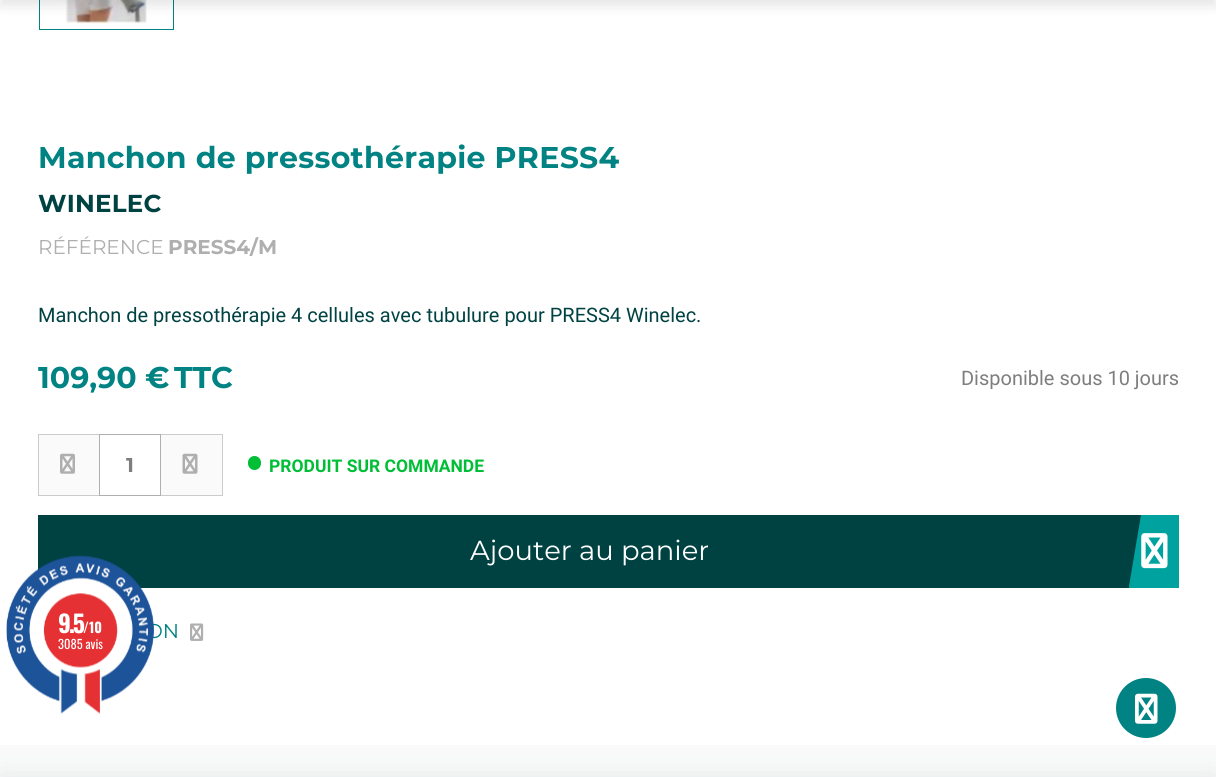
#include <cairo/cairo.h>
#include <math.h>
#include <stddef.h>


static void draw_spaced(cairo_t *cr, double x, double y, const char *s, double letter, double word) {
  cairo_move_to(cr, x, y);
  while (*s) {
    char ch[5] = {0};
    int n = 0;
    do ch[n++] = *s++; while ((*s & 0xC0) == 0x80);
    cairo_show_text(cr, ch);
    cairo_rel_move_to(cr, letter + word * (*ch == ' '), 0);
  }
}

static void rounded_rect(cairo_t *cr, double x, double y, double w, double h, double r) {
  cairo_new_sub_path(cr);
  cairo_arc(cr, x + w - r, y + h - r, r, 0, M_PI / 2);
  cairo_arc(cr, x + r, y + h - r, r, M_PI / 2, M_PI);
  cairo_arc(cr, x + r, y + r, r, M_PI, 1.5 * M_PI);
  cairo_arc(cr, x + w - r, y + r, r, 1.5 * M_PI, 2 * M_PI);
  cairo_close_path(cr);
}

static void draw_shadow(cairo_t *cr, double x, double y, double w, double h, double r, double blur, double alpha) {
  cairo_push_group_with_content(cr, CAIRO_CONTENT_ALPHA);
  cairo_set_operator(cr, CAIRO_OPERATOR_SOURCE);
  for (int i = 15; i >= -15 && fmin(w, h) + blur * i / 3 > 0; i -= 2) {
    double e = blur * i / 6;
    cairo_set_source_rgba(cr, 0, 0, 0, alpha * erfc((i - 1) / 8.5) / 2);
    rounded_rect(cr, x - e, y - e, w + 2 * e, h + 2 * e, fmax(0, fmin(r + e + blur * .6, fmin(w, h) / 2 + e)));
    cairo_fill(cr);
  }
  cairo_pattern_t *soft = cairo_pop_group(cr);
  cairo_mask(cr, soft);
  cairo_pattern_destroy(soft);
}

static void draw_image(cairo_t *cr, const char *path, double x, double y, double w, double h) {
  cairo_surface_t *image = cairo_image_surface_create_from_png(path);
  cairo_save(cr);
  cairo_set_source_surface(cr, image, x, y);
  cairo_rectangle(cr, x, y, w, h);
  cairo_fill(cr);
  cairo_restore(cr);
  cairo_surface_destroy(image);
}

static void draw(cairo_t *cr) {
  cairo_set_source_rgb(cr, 1, 1, 1);
  cairo_paint(cr);
  draw_image(cr, "images/1.png", 63, 0, 84, 24);
  cairo_rectangle(cr, 39.5, -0.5, 134, 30);
  cairo_set_source_rgb(cr, 0, 131 / 255.0, 130 / 255.0);
  cairo_set_line_width(cr, 1);
  cairo_stroke(cr);
  cairo_set_source_rgb(cr, 0, 0, 0);
  draw_shadow(cr, 0, -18, 1216, 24, 0, 6, 0.1);
  cairo_set_source_rgb(cr, 250 / 255.0, 250 / 255.0, 250 / 255.0);
  cairo_rectangle(cr, 38.5, 434.5, 61, 61);
  cairo_fill_preserve(cr);
  cairo_set_source_rgb(cr, 204 / 255.0, 204 / 255.0, 204 / 255.0);
  cairo_stroke(cr);
  draw_image(cr, "images/2.png", 60, 453, 15, 21);
  cairo_set_source_rgb(cr, 250 / 255.0, 250 / 255.0, 250 / 255.0);
  cairo_rectangle(cr, 160.5, 434.5, 62, 61);
  cairo_fill_preserve(cr);
  cairo_set_source_rgb(cr, 204 / 255.0, 204 / 255.0, 204 / 255.0);
  cairo_stroke(cr);
  draw_image(cr, "images/3.png", 182, 453, 16, 21);
  cairo_rectangle(cr, 99.5, 434.5, 61, 61);
  cairo_set_source_rgb(cr, 175 / 255.0, 175 / 255.0, 175 / 255.0);
  cairo_stroke(cr);
  cairo_set_source_rgb(cr, 0, 191 / 255.0, 54 / 255.0);
  rounded_rect(cr, 248, 456, 13, 14, 6.5);
  cairo_fill(cr);
  cairo_set_source_rgb(cr, 0, 66 / 255.0, 66 / 255.0);
  cairo_rectangle(cr, 38, 515, 1103, 73);
  cairo_fill(cr);
  cairo_set_source_rgb(cr, 0, 162 / 255.0, 160 / 255.0);
  cairo_new_path(cr);
  cairo_move_to(cr, 1129, 586);
  cairo_line_to(cr, 1141, 515);
  cairo_line_to(cr, 1179, 515);
  cairo_line_to(cr, 1179, 588);
  cairo_line_to(cr, 1129, 588);
  cairo_close_path(cr);
  cairo_fill(cr);
  draw_image(cr, "images/4.png", 1141, 533, 27, 36);
  draw_image(cr, "images/5.png", 190, 623, 14, 18);
  cairo_set_source_rgb(cr, 250 / 255.0, 250 / 255.0, 250 / 255.0);
  cairo_rectangle(cr, 0, 745, 1216, 32);
  cairo_fill(cr);
  cairo_set_source_rgb(cr, 0, 66 / 255.0, 66 / 255.0);
  draw_shadow(cr, 0, 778, 1216, 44, 0, 15, 0.1);
  cairo_set_source_rgb(cr, 0, 131 / 255.0, 130 / 255.0);
  cairo_arc(cr, 1146, 708, 30, 0, 2 * M_PI);
  cairo_fill(cr);
  draw_image(cr, "images/6.png", 1135, 693, 23, 31);
  cairo_select_font_face(cr, "Montserrat Thin", CAIRO_FONT_SLANT_NORMAL, CAIRO_FONT_WEIGHT_NORMAL);
  cairo_set_font_size(cr, 30);
  draw_spaced(cr, 38, 168, "Manchon de pressothérapie PRESS4", 0.3, 0);
  cairo_set_font_size(cr, 24.5);
  cairo_set_source_rgb(cr, 0, 66 / 255.0, 66 / 255.0);
  draw_spaced(cr, 38, 212, "WINELEC", 0.25, 0);
  cairo_select_font_face(cr, "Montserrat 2 Thin", CAIRO_FONT_SLANT_NORMAL, CAIRO_FONT_WEIGHT_NORMAL);
  cairo_set_font_size(cr, 20);
  cairo_set_source_rgb(cr, 175 / 255.0, 175 / 255.0, 175 / 255.0);
  cairo_move_to(cr, 38, 254);
  cairo_show_text(cr, "RÉFÉRENCE");
  cairo_select_font_face(cr, "Montserrat Thin", CAIRO_FONT_SLANT_NORMAL, CAIRO_FONT_WEIGHT_NORMAL);
  cairo_move_to(cr, 168, 254);
  cairo_show_text(cr, "PRESS4/M");
  cairo_select_font_face(cr, "Roboto", CAIRO_FONT_SLANT_NORMAL, CAIRO_FONT_WEIGHT_NORMAL);
  cairo_set_source_rgb(cr, 0, 66 / 255.0, 66 / 255.0);
  cairo_move_to(cr, 38, 322);
  cairo_show_text(cr, "Manchon de pressothérapie 4 cellules avec tubulure pour PRESS4 Winelec.");
  cairo_select_font_face(cr, "Montserrat Thin", CAIRO_FONT_SLANT_NORMAL, CAIRO_FONT_WEIGHT_NORMAL);
  cairo_set_font_size(cr, 30);
  cairo_set_source_rgb(cr, 0, 131 / 255.0, 130 / 255.0);
  cairo_move_to(cr, 38, 388);
  cairo_show_text(cr, "109,90 €");
  cairo_move_to(cr, 174, 388);
  cairo_show_text(cr, "TTC");
  cairo_select_font_face(cr, "Roboto", CAIRO_FONT_SLANT_NORMAL, CAIRO_FONT_WEIGHT_NORMAL);
  cairo_set_font_size(cr, 20);
  cairo_set_source_rgb(cr, 126 / 255.0, 126 / 255.0, 126 / 255.0);
  cairo_move_to(cr, 961, 385);
  cairo_show_text(cr, "Disponible sous 10 jours");
  cairo_select_font_face(cr, "Montserrat Thin", CAIRO_FONT_SLANT_NORMAL, CAIRO_FONT_WEIGHT_NORMAL);
  cairo_move_to(cr, 126, 472);
  cairo_show_text(cr, "1");
  cairo_select_font_face(cr, "Roboto", CAIRO_FONT_SLANT_NORMAL, CAIRO_FONT_WEIGHT_BOLD);
  cairo_set_font_size(cr, 17.5);
  cairo_set_source_rgb(cr, 0, 191 / 255.0, 54 / 255.0);
  cairo_move_to(cr, 269, 472);
  cairo_show_text(cr, "PRODUIT SUR COMMANDE");
  cairo_select_font_face(cr, "Montserrat 2 Thin", CAIRO_FONT_SLANT_NORMAL, CAIRO_FONT_WEIGHT_NORMAL);
  cairo_set_font_size(cr, 27.5);
  cairo_set_source_rgb(cr, 1, 1, 1);
  cairo_move_to(cr, 470, 560);
  cairo_show_text(cr, "Ajouter au panier");
  cairo_set_font_size(cr, 20);
  cairo_set_source_rgb(cr, 0, 131 / 255.0, 130 / 255.0);
  cairo_move_to(cr, 146, 638);
  cairo_show_text(cr, "ON");
  draw_image(cr, "images/7.png", 6, 555, 148, 159);
  cairo_select_font_face(cr, "Oswald", CAIRO_FONT_SLANT_NORMAL, CAIRO_FONT_WEIGHT_BOLD);
  cairo_set_font_size(cr, 24);
  cairo_set_source_rgb(cr, 1, 1, 1);
  draw_spaced(cr, 58, 633, "9.5", -2, 0);
  cairo_set_font_size(cr, 14);
  cairo_move_to(cr, 83, 633);
  cairo_show_text(cr, "/10");
  cairo_select_font_face(cr, "Oswald", CAIRO_FONT_SLANT_NORMAL, CAIRO_FONT_WEIGHT_NORMAL);
  cairo_set_font_size(cr, 12.5);
  cairo_move_to(cr, 58, 649);
  cairo_show_text(cr, "3085 avis");
}

int main(void) {
  cairo_surface_t *surface = cairo_image_surface_create(CAIRO_FORMAT_RGB24, 1216, 777);
  cairo_t *cr = cairo_create(surface);
  cairo_font_options_t *options = cairo_font_options_create();
  cairo_font_options_set_hint_metrics(options, CAIRO_HINT_METRICS_OFF);
  cairo_font_options_set_hint_style(options, CAIRO_HINT_STYLE_NONE);
  cairo_set_font_options(cr, options);
  cairo_set_miter_limit(cr, 4);
  draw(cr);
  cairo_surface_write_to_png(surface, "out.png");
  cairo_font_options_destroy(options);
  cairo_destroy(cr);
  cairo_surface_destroy(surface);
  return 0;
}
